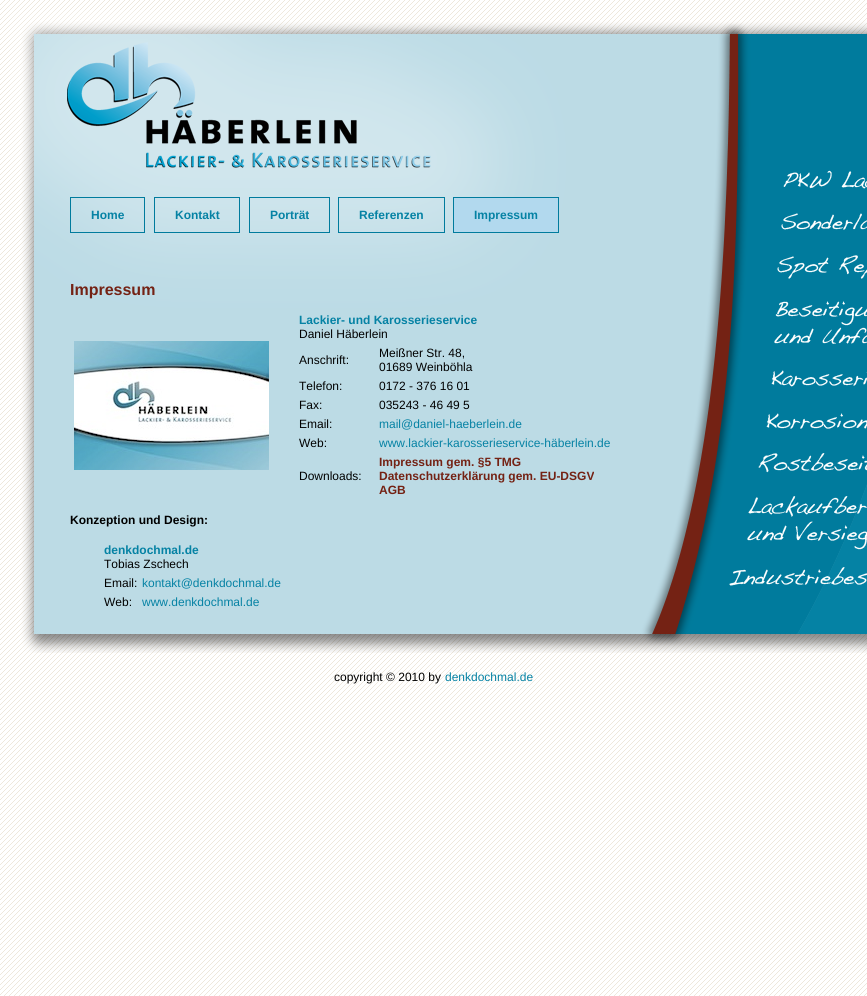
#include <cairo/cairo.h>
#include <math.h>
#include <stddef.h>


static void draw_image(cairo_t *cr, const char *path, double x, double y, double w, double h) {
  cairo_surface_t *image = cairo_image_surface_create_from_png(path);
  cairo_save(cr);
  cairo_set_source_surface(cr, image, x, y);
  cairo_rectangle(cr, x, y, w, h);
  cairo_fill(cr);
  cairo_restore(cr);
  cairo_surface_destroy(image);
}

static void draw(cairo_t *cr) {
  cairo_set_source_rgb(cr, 1, 1, 1);
  cairo_paint(cr);
  draw_image(cr, "images/1.png", 0, 0, 867, 996);
  draw_image(cr, "images/2.png", 10, 10, 857, 643);
  cairo_rectangle(cr, 70.5, 197.5, 74, 35);
  cairo_set_source_rgb(cr, 0, 123 / 255.0, 157 / 255.0);
  cairo_set_line_width(cr, 1);
  cairo_stroke(cr);
  cairo_rectangle(cr, 154.5, 197.5, 85, 35);
  cairo_stroke(cr);
  cairo_rectangle(cr, 249.5, 197.5, 80, 35);
  cairo_stroke(cr);
  cairo_rectangle(cr, 338.5, 197.5, 106, 35);
  cairo_stroke(cr);
  cairo_set_source_rgb(cr, 178 / 255.0, 217 / 255.0, 238 / 255.0);
  cairo_rectangle(cr, 453.5, 197.5, 105, 35);
  cairo_fill_preserve(cr);
  cairo_set_source_rgb(cr, 0, 123 / 255.0, 157 / 255.0);
  cairo_stroke(cr);
  draw_image(cr, "images/3.png", 74, 341, 195, 129);
  cairo_select_font_face(cr, "Liberation Sans", CAIRO_FONT_SLANT_NORMAL, CAIRO_FONT_WEIGHT_BOLD);
  cairo_set_font_size(cr, 12);
  cairo_set_source_rgb(cr, 5 / 255.0, 130 / 255.0, 164 / 255.0);
  cairo_move_to(cr, 91, 219);
  cairo_show_text(cr, "Home");
  cairo_move_to(cr, 175, 219);
  cairo_show_text(cr, "Kontakt");
  cairo_move_to(cr, 270, 219);
  cairo_show_text(cr, "Porträt");
  cairo_move_to(cr, 359, 219);
  cairo_show_text(cr, "Referenzen");
  cairo_move_to(cr, 474, 219);
  cairo_show_text(cr, "Impressum");
  cairo_set_font_size(cr, 16);
  cairo_set_source_rgb(cr, 116 / 255.0, 34 / 255.0, 20 / 255.0);
  cairo_move_to(cr, 70, 295);
  cairo_show_text(cr, "Impressum");
  cairo_set_font_size(cr, 12);
  cairo_set_source_rgb(cr, 5 / 255.0, 130 / 255.0, 164 / 255.0);
  cairo_move_to(cr, 299, 324);
  cairo_show_text(cr, "Lackier- und Karosserieservice");
  cairo_select_font_face(cr, "Liberation Sans", CAIRO_FONT_SLANT_NORMAL, CAIRO_FONT_WEIGHT_NORMAL);
  cairo_set_source_rgb(cr, 0, 0, 0);
  cairo_move_to(cr, 299, 338);
  cairo_show_text(cr, "Daniel Häberlein");
  cairo_move_to(cr, 299, 364);
  cairo_show_text(cr, "Anschrift:");
  cairo_move_to(cr, 379, 357);
  cairo_show_text(cr, "Meißner Str. 48,");
  cairo_move_to(cr, 379, 371);
  cairo_show_text(cr, "01689 Weinböhla");
  cairo_move_to(cr, 299, 390);
  cairo_show_text(cr, "Telefon:");
  cairo_move_to(cr, 379, 390);
  cairo_show_text(cr, "0172 - 376 16 01");
  cairo_move_to(cr, 299, 409);
  cairo_show_text(cr, "Fax:");
  cairo_move_to(cr, 379, 409);
  cairo_show_text(cr, "035243 - 46 49 5");
  cairo_move_to(cr, 299, 428);
  cairo_show_text(cr, "Email:");
  cairo_set_source_rgb(cr, 5 / 255.0, 130 / 255.0, 164 / 255.0);
  cairo_move_to(cr, 379, 428);
  cairo_show_text(cr, "mail@daniel-haeberlein.de");
  cairo_set_source_rgb(cr, 0, 0, 0);
  cairo_move_to(cr, 299, 447);
  cairo_show_text(cr, "Web:");
  cairo_set_source_rgb(cr, 5 / 255.0, 130 / 255.0, 164 / 255.0);
  cairo_move_to(cr, 379, 447);
  cairo_show_text(cr, "www.lackier-karosserieservice-häberlein.de");
  cairo_set_source_rgb(cr, 0, 0, 0);
  cairo_move_to(cr, 299, 480);
  cairo_show_text(cr, "Downloads:");
  cairo_select_font_face(cr, "Liberation Sans", CAIRO_FONT_SLANT_NORMAL, CAIRO_FONT_WEIGHT_BOLD);
  cairo_set_source_rgb(cr, 116 / 255.0, 34 / 255.0, 20 / 255.0);
  cairo_move_to(cr, 379, 466);
  cairo_show_text(cr, "Impressum gem. §5 TMG");
  cairo_move_to(cr, 379, 480);
  cairo_show_text(cr, "Datenschutzerklärung gem. EU-DSGV");
  cairo_move_to(cr, 379, 494);
  cairo_show_text(cr, "AGB");
  cairo_set_source_rgb(cr, 0, 0, 0);
  cairo_move_to(cr, 70, 524);
  cairo_show_text(cr, "Konzeption und Design:");
  cairo_set_source_rgb(cr, 5 / 255.0, 130 / 255.0, 164 / 255.0);
  cairo_move_to(cr, 104, 554);
  cairo_show_text(cr, "denkdochmal.de");
  cairo_select_font_face(cr, "Liberation Sans", CAIRO_FONT_SLANT_NORMAL, CAIRO_FONT_WEIGHT_NORMAL);
  cairo_set_source_rgb(cr, 0, 0, 0);
  cairo_move_to(cr, 104, 568);
  cairo_show_text(cr, "Tobias Zschech");
  cairo_move_to(cr, 104, 587);
  cairo_show_text(cr, "Email:");
  cairo_set_source_rgb(cr, 5 / 255.0, 130 / 255.0, 164 / 255.0);
  cairo_move_to(cr, 142, 587);
  cairo_show_text(cr, "kontakt@denkdochmal.de");
  cairo_set_source_rgb(cr, 0, 0, 0);
  cairo_move_to(cr, 104, 606);
  cairo_show_text(cr, "Web:");
  cairo_set_source_rgb(cr, 5 / 255.0, 130 / 255.0, 164 / 255.0);
  cairo_move_to(cr, 142, 606);
  cairo_show_text(cr, "www.denkdochmal.de");
  cairo_set_source_rgb(cr, 0, 0, 0);
  cairo_move_to(cr, 334, 681);
  cairo_show_text(cr, "copyright © 2010 by");
  cairo_set_source_rgb(cr, 5 / 255.0, 130 / 255.0, 164 / 255.0);
  cairo_move_to(cr, 445, 681);
  cairo_show_text(cr, "denkdochmal.de");
}

int main(void) {
  cairo_surface_t *surface = cairo_image_surface_create(CAIRO_FORMAT_RGB24, 867, 996);
  cairo_t *cr = cairo_create(surface);
  cairo_font_options_t *options = cairo_font_options_create();
  cairo_font_options_set_hint_metrics(options, CAIRO_HINT_METRICS_OFF);
  cairo_font_options_set_hint_style(options, CAIRO_HINT_STYLE_NONE);
  cairo_set_font_options(cr, options);
  cairo_set_miter_limit(cr, 4);
  draw(cr);
  cairo_surface_write_to_png(surface, "out.png");
  cairo_font_options_destroy(options);
  cairo_destroy(cr);
  cairo_surface_destroy(surface);
  return 0;
}
